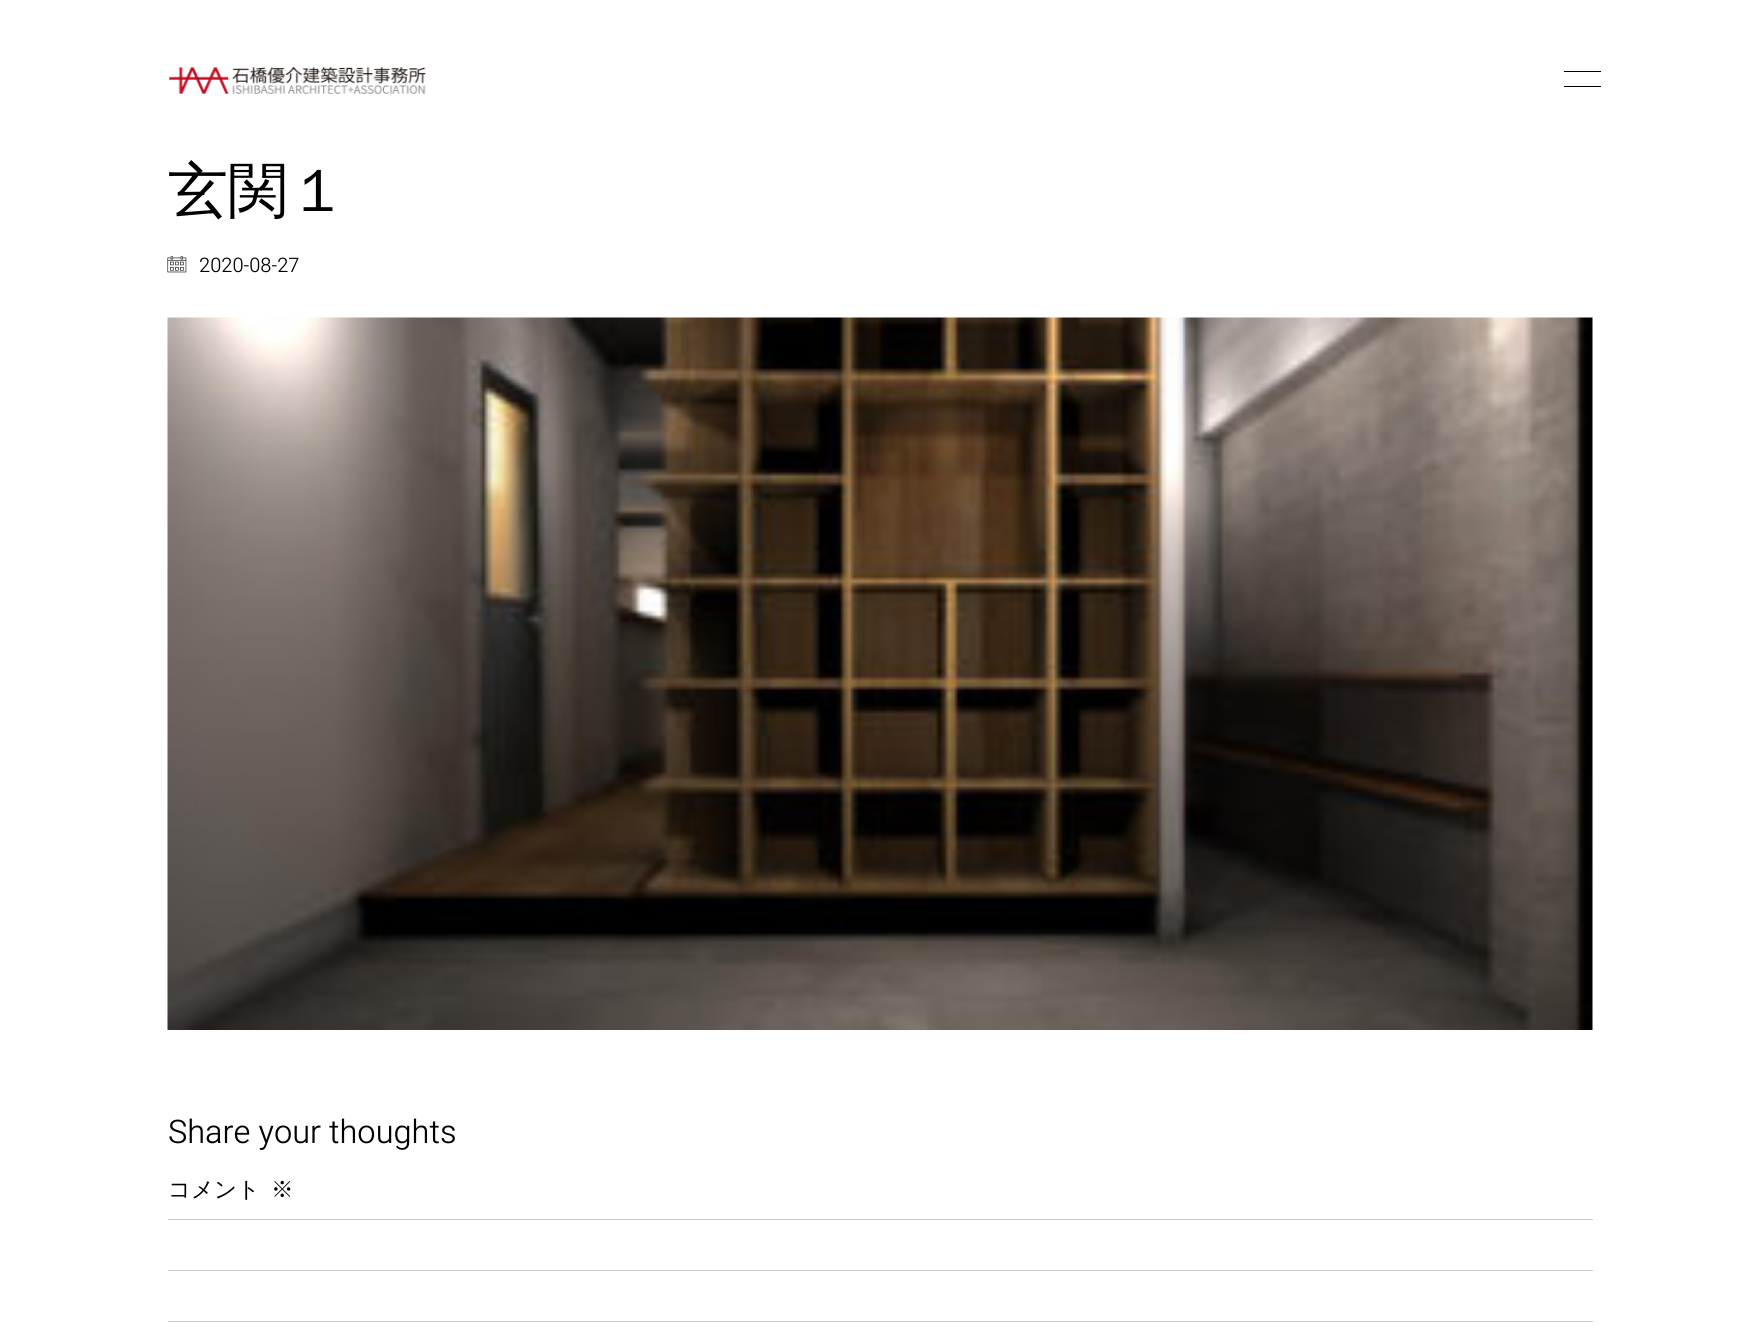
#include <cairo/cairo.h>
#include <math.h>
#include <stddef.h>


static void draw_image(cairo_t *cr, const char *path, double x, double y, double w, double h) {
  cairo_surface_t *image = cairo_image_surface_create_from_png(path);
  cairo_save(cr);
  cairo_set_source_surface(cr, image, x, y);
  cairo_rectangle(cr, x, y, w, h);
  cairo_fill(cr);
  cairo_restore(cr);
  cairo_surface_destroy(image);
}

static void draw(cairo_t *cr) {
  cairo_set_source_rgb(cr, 1, 1, 1);
  cairo_paint(cr);
  draw_image(cr, "images/1.png", 169, 67, 257, 27);
  cairo_set_source_rgb(cr, 0, 0, 0);
  cairo_rectangle(cr, 1564, 71, 37, 1);
  cairo_fill(cr);
  cairo_rectangle(cr, 1564, 86, 37, 1);
  cairo_fill(cr);
  draw_image(cr, "images/2.png", 167, 256, 20, 17);
  draw_image(cr, "images/3.png", 167, 317, 1426, 713);
  cairo_set_source_rgb(cr, 204 / 255.0, 204 / 255.0, 204 / 255.0);
  cairo_rectangle(cr, 168, 1219, 1425, 1);
  cairo_fill(cr);
  cairo_rectangle(cr, 168, 1270, 1425, 1);
  cairo_fill(cr);
  cairo_rectangle(cr, 168, 1321, 1425, 1);
  cairo_fill(cr);
  cairo_select_font_face(cr, "WenQuanYi Zen Hei Medium", CAIRO_FONT_SLANT_NORMAL, CAIRO_FONT_WEIGHT_NORMAL);
  cairo_set_font_size(cr, 60);
  cairo_set_source_rgb(cr, 0, 0, 0);
  cairo_move_to(cr, 168, 211);
  cairo_show_text(cr, "玄関１");
  cairo_select_font_face(cr, "Heebo Light", CAIRO_FONT_SLANT_NORMAL, CAIRO_FONT_WEIGHT_NORMAL);
  cairo_set_font_size(cr, 20);
  cairo_move_to(cr, 199, 272);
  cairo_show_text(cr, "2020-08-27");
  cairo_set_font_size(cr, 32.5);
  cairo_move_to(cr, 168, 1143);
  cairo_show_text(cr, "Share your thoughts");
  cairo_select_font_face(cr, "WenQuanYi Zen Hei Medium", CAIRO_FONT_SLANT_NORMAL, CAIRO_FONT_WEIGHT_NORMAL);
  cairo_set_font_size(cr, 22.5);
  cairo_move_to(cr, 168, 1197);
  cairo_show_text(cr, "コメント");
  cairo_move_to(cr, 271, 1197);
  cairo_show_text(cr, "※");
}

int main(void) {
  cairo_surface_t *surface = cairo_image_surface_create(CAIRO_FORMAT_RGB24, 1760, 1344);
  cairo_t *cr = cairo_create(surface);
  cairo_font_options_t *options = cairo_font_options_create();
  cairo_font_options_set_hint_metrics(options, CAIRO_HINT_METRICS_OFF);
  cairo_font_options_set_hint_style(options, CAIRO_HINT_STYLE_NONE);
  cairo_set_font_options(cr, options);
  cairo_set_miter_limit(cr, 4);
  draw(cr);
  cairo_surface_write_to_png(surface, "out.png");
  cairo_font_options_destroy(options);
  cairo_destroy(cr);
  cairo_surface_destroy(surface);
  return 0;
}
